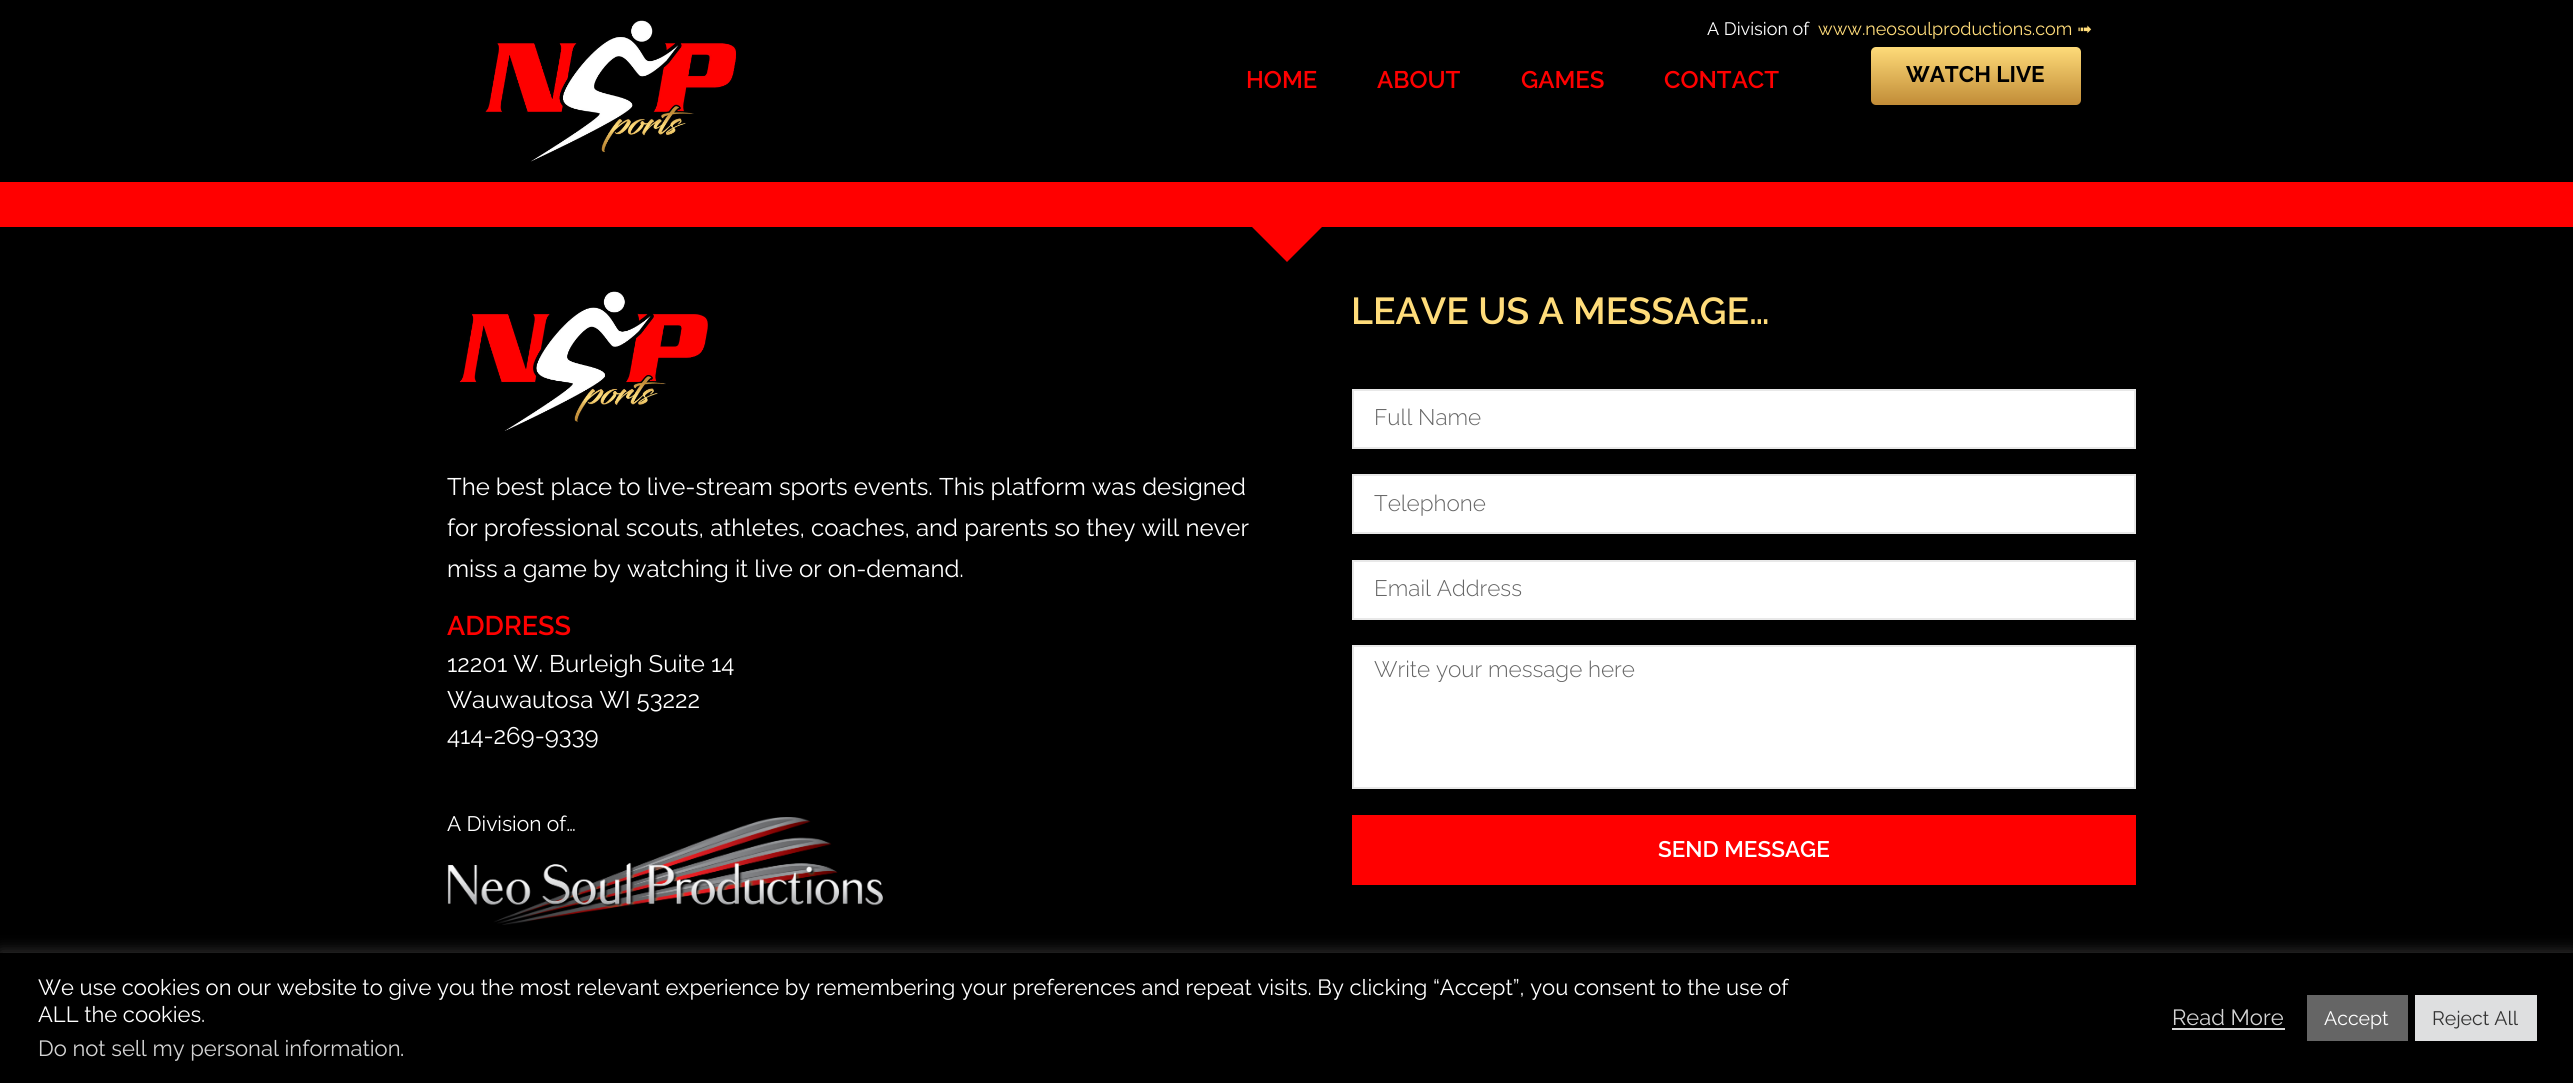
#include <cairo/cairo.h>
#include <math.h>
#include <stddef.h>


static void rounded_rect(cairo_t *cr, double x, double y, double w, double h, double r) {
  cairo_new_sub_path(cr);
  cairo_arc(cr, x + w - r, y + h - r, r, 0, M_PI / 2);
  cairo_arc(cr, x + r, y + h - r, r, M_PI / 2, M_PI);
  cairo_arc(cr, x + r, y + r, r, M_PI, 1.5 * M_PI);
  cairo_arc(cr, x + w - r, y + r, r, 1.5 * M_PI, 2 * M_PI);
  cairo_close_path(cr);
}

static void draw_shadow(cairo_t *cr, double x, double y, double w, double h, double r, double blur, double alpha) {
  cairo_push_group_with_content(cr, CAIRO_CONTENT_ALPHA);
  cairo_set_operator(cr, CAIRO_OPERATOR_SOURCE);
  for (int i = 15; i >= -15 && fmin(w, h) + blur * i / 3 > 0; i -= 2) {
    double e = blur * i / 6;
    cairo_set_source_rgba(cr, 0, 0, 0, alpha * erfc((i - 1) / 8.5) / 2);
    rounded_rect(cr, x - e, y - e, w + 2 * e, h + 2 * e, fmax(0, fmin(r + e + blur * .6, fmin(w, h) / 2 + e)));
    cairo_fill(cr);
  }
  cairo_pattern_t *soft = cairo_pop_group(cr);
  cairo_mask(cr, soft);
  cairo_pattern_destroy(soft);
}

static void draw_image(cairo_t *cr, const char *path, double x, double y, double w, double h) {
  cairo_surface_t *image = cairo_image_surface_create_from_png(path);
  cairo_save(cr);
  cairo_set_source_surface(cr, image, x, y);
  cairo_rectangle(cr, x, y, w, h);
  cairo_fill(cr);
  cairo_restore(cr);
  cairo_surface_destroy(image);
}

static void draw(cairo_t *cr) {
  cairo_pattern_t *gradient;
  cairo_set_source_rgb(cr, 1, 0, 0);
  cairo_paint(cr);
  cairo_set_source_rgb(cr, 0, 0, 0);
  cairo_rectangle(cr, 0, 0, 2573, 182);
  cairo_fill(cr);
  draw_image(cr, "images/1.png", 485, 20, 252, 142);
  gradient = cairo_pattern_create_linear(1976, 46, 1976, 105);
  cairo_pattern_add_color_stop_rgba(gradient, 0, 1, 220 / 255.0, 122 / 255.0, 1);
  cairo_pattern_add_color_stop_rgba(gradient, 1, 193 / 255.0, 140 / 255.0, 55 / 255.0, 1);
  cairo_set_source(cr, gradient);
  cairo_pattern_destroy(gradient);
  rounded_rect(cr, 1871, 47, 210, 58, 5);
  cairo_fill(cr);
  cairo_set_source_rgb(cr, 0, 0, 0);
  cairo_rectangle(cr, 0, 227, 2573, 726);
  cairo_fill(cr);
  cairo_set_source_rgb(cr, 1, 0, 0);
  cairo_new_path(cr);
  cairo_move_to(cr, 1287, 262);
  cairo_line_to(cr, 1250, 225);
  cairo_line_to(cr, 1324, 225);
  cairo_close_path(cr);
  cairo_fill(cr);
  draw_image(cr, "images/2.png", 459, 291, 249, 140);
  cairo_set_source_rgb(cr, 1, 1, 1);
  cairo_rectangle(cr, 1353, 390, 782, 58);
  cairo_fill_preserve(cr);
  cairo_set_source_rgb(cr, 232 / 255.0, 232 / 255.0, 232 / 255.0);
  cairo_stroke(cr);
  cairo_set_source_rgb(cr, 1, 1, 1);
  cairo_rectangle(cr, 1353, 475, 782, 58);
  cairo_fill_preserve(cr);
  cairo_set_source_rgb(cr, 232 / 255.0, 232 / 255.0, 232 / 255.0);
  cairo_stroke(cr);
  cairo_set_source_rgb(cr, 1, 1, 1);
  cairo_rectangle(cr, 1353, 561, 782, 58);
  cairo_fill_preserve(cr);
  cairo_set_source_rgb(cr, 232 / 255.0, 232 / 255.0, 232 / 255.0);
  cairo_stroke(cr);
  cairo_set_source_rgb(cr, 1, 1, 1);
  cairo_rectangle(cr, 1353, 646, 782, 142);
  cairo_fill_preserve(cr);
  cairo_set_source_rgb(cr, 232 / 255.0, 232 / 255.0, 232 / 255.0);
  cairo_stroke(cr);
  cairo_set_source_rgb(cr, 1, 0, 0);
  cairo_rectangle(cr, 1352, 815, 784, 70);
  cairo_fill(cr);
  cairo_set_source_rgb(cr, 172 / 255.0, 171 / 255.0, 171 / 255.0);
  draw_shadow(cr, 0, 951, 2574, 131, 0, 7.5, 0.3);
  cairo_set_source_rgb(cr, 0, 0, 0);
  cairo_rectangle(cr, 0, 953, 2573, 130);
  cairo_fill(cr);
  cairo_set_source_rgb(cr, 216 / 255.0, 216 / 255.0, 216 / 255.0);
  cairo_rectangle(cr, 2172, 1028, 113, 2);
  cairo_fill(cr);
  cairo_set_source_rgb(cr, 101 / 255.0, 101 / 255.0, 101 / 255.0);
  cairo_rectangle(cr, 2307, 995, 101, 46);
  cairo_fill(cr);
  cairo_set_source_rgb(cr, 222 / 255.0, 223 / 255.0, 224 / 255.0);
  cairo_rectangle(cr, 2415, 995, 122, 46);
  cairo_fill(cr);
  cairo_select_font_face(cr, "Raleway", CAIRO_FONT_SLANT_NORMAL, CAIRO_FONT_WEIGHT_NORMAL);
  cairo_set_font_size(cr, 18);
  cairo_set_source_rgb(cr, 1, 1, 1);
  cairo_move_to(cr, 1707, 35);
  cairo_show_text(cr, "A Division of");
  cairo_set_source_rgb(cr, 1, 220 / 255.0, 122 / 255.0);
  cairo_move_to(cr, 1818, 35);
  cairo_show_text(cr, "www.neosoulproductions.com");
  cairo_select_font_face(cr, "DejaVu Sans", CAIRO_FONT_SLANT_NORMAL, CAIRO_FONT_WEIGHT_NORMAL);
  cairo_move_to(cr, 2077, 35);
  cairo_show_text(cr, "➟");
  cairo_select_font_face(cr, "Raleway SemiBold", CAIRO_FONT_SLANT_NORMAL, CAIRO_FONT_WEIGHT_NORMAL);
  cairo_set_font_size(cr, 24);
  cairo_set_source_rgb(cr, 1, 0, 0);
  cairo_move_to(cr, 1246, 88);
  cairo_show_text(cr, "HOME");
  cairo_move_to(cr, 1377, 88);
  cairo_show_text(cr, "ABOUT");
  cairo_move_to(cr, 1521, 88);
  cairo_show_text(cr, "GAMES");
  cairo_move_to(cr, 1664, 88);
  cairo_show_text(cr, "CONTACT");
  cairo_select_font_face(cr, "Raleway", CAIRO_FONT_SLANT_NORMAL, CAIRO_FONT_WEIGHT_BOLD);
  cairo_set_font_size(cr, 22.5);
  cairo_set_source_rgb(cr, 0, 0, 0);
  cairo_move_to(cr, 1906, 82);
  cairo_show_text(cr, "WATCH LIVE");
  cairo_select_font_face(cr, "Raleway", CAIRO_FONT_SLANT_NORMAL, CAIRO_FONT_WEIGHT_NORMAL);
  cairo_set_font_size(cr, 24);
  cairo_set_source_rgb(cr, 1, 1, 1);
  cairo_move_to(cr, 447, 495);
  cairo_show_text(cr, "The best place to live-stream sports events. This platform was designed");
  cairo_move_to(cr, 447, 536);
  cairo_show_text(cr, "for professional scouts, athletes, coaches, and parents so they will never");
  cairo_move_to(cr, 447, 577);
  cairo_show_text(cr, "miss a game by watching it live or on-demand.");
  cairo_select_font_face(cr, "Raleway SemiBold", CAIRO_FONT_SLANT_NORMAL, CAIRO_FONT_WEIGHT_NORMAL);
  cairo_set_font_size(cr, 27);
  cairo_set_source_rgb(cr, 1, 0, 0);
  cairo_move_to(cr, 447, 635);
  cairo_show_text(cr, "ADDRESS");
  cairo_select_font_face(cr, "Raleway", CAIRO_FONT_SLANT_NORMAL, CAIRO_FONT_WEIGHT_NORMAL);
  cairo_set_font_size(cr, 24);
  cairo_set_source_rgb(cr, 1, 1, 1);
  cairo_move_to(cr, 447, 672);
  cairo_show_text(cr, "12201 W. Burleigh Suite 14");
  cairo_move_to(cr, 447, 708);
  cairo_show_text(cr, "Wauwautosa WI 53222");
  cairo_move_to(cr, 447, 744);
  cairo_show_text(cr, "414-269-9339");
  cairo_set_font_size(cr, 21);
  cairo_move_to(cr, 447, 831);
  cairo_show_text(cr, "A Division of…");
  draw_image(cr, "images/3.png", 447, 817, 436, 108);
  cairo_select_font_face(cr, "Raleway SemiBold", CAIRO_FONT_SLANT_NORMAL, CAIRO_FONT_WEIGHT_NORMAL);
  cairo_set_font_size(cr, 37.5);
  cairo_set_source_rgb(cr, 1, 220 / 255.0, 122 / 255.0);
  cairo_move_to(cr, 1351, 324);
  cairo_show_text(cr, "LEAVE US A MESSAGE…");
  cairo_select_font_face(cr, "Raleway Light", CAIRO_FONT_SLANT_NORMAL, CAIRO_FONT_WEIGHT_NORMAL);
  cairo_set_font_size(cr, 22.5);
  cairo_set_source_rgb(cr, 102 / 255.0, 102 / 255.0, 102 / 255.0);
  cairo_move_to(cr, 1374, 425);
  cairo_show_text(cr, "Full Name");
  cairo_move_to(cr, 1374, 511);
  cairo_show_text(cr, "Telephone");
  cairo_move_to(cr, 1374, 596);
  cairo_show_text(cr, "Email Address");
  cairo_move_to(cr, 1374, 677);
  cairo_show_text(cr, "Write your message here");
  cairo_select_font_face(cr, "Raleway SemiBold", CAIRO_FONT_SLANT_NORMAL, CAIRO_FONT_WEIGHT_NORMAL);
  cairo_set_source_rgb(cr, 1, 1, 1);
  cairo_move_to(cr, 1658, 857);
  cairo_show_text(cr, "SEND MESSAGE");
  cairo_select_font_face(cr, "Raleway", CAIRO_FONT_SLANT_NORMAL, CAIRO_FONT_WEIGHT_NORMAL);
  cairo_set_font_size(cr, 22);
  cairo_move_to(cr, 38, 995);
  cairo_show_text(cr, "We use cookies on our website to give you the most relevant experience by remembering your preferences and repeat visits. By clicking “Accept”, you consent to the use of");
  cairo_move_to(cr, 38, 1022);
  cairo_show_text(cr, "ALL the cookies.");
  cairo_set_source_rgb(cr, 211 / 255.0, 211 / 255.0, 211 / 255.0);
  cairo_move_to(cr, 38, 1056);
  cairo_show_text(cr, "Do not sell my personal information");
  cairo_set_source_rgb(cr, 1, 1, 1);
  cairo_move_to(cr, 400, 1056);
  cairo_show_text(cr, ".");
  cairo_set_source_rgb(cr, 211 / 255.0, 211 / 255.0, 211 / 255.0);
  cairo_move_to(cr, 2172, 1025);
  cairo_show_text(cr, "Read More");
  cairo_set_font_size(cr, 19.5);
  cairo_set_source_rgb(cr, 1, 1, 1);
  cairo_move_to(cr, 2324, 1025);
  cairo_show_text(cr, "Accept");
  cairo_set_source_rgb(cr, 51 / 255.0, 51 / 255.0, 51 / 255.0);
  cairo_move_to(cr, 2432, 1025);
  cairo_show_text(cr, "Reject All");
}

int main(void) {
  cairo_surface_t *surface = cairo_image_surface_create(CAIRO_FORMAT_RGB24, 2573, 1083);
  cairo_t *cr = cairo_create(surface);
  cairo_font_options_t *options = cairo_font_options_create();
  cairo_font_options_set_hint_metrics(options, CAIRO_HINT_METRICS_OFF);
  cairo_font_options_set_hint_style(options, CAIRO_HINT_STYLE_NONE);
  cairo_set_font_options(cr, options);
  cairo_set_miter_limit(cr, 4);
  draw(cr);
  cairo_surface_write_to_png(surface, "out.png");
  cairo_font_options_destroy(options);
  cairo_destroy(cr);
  cairo_surface_destroy(surface);
  return 0;
}
